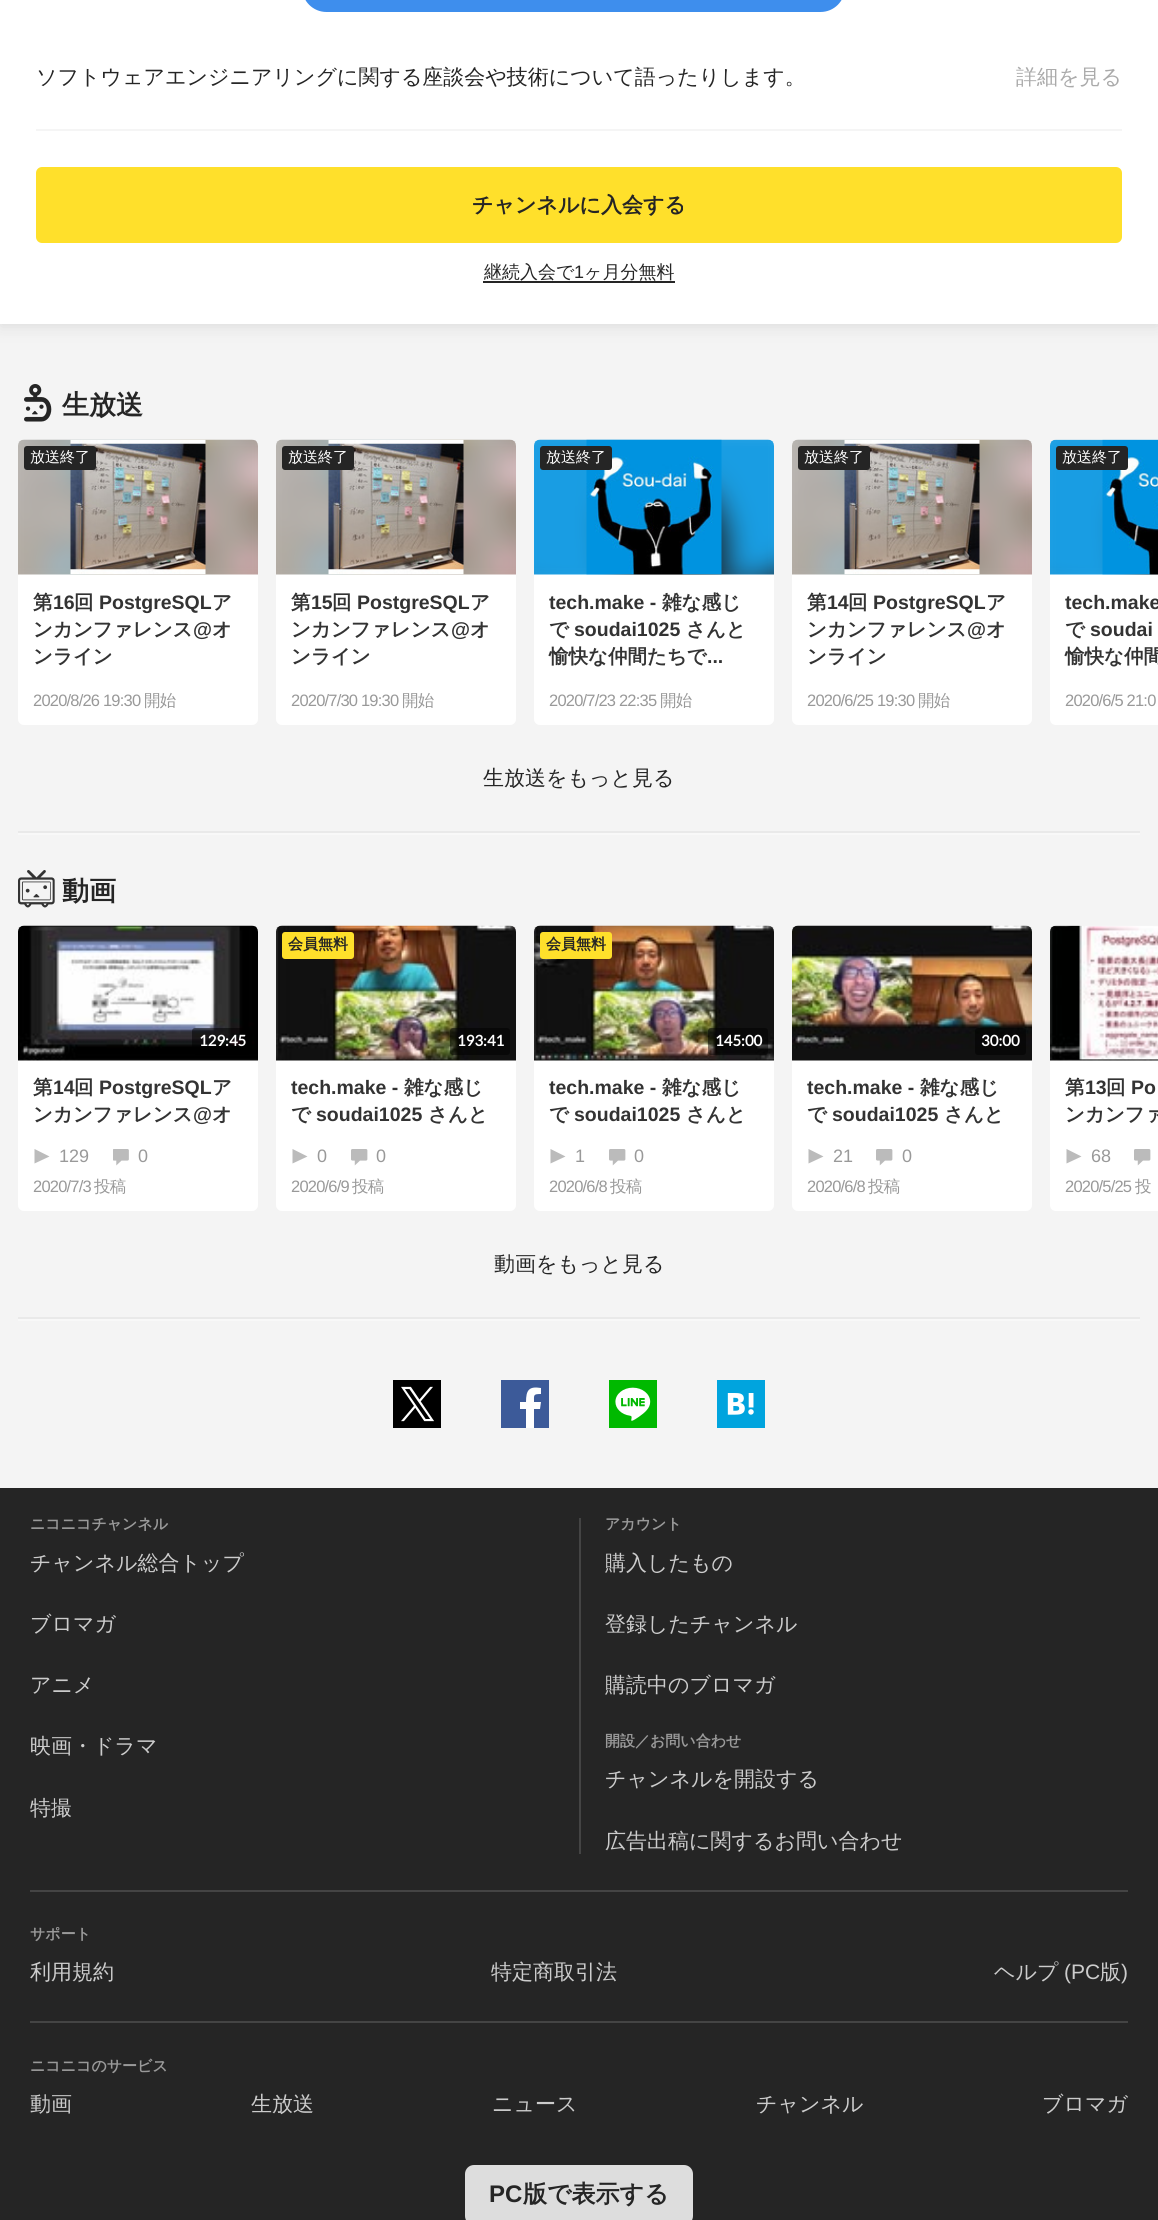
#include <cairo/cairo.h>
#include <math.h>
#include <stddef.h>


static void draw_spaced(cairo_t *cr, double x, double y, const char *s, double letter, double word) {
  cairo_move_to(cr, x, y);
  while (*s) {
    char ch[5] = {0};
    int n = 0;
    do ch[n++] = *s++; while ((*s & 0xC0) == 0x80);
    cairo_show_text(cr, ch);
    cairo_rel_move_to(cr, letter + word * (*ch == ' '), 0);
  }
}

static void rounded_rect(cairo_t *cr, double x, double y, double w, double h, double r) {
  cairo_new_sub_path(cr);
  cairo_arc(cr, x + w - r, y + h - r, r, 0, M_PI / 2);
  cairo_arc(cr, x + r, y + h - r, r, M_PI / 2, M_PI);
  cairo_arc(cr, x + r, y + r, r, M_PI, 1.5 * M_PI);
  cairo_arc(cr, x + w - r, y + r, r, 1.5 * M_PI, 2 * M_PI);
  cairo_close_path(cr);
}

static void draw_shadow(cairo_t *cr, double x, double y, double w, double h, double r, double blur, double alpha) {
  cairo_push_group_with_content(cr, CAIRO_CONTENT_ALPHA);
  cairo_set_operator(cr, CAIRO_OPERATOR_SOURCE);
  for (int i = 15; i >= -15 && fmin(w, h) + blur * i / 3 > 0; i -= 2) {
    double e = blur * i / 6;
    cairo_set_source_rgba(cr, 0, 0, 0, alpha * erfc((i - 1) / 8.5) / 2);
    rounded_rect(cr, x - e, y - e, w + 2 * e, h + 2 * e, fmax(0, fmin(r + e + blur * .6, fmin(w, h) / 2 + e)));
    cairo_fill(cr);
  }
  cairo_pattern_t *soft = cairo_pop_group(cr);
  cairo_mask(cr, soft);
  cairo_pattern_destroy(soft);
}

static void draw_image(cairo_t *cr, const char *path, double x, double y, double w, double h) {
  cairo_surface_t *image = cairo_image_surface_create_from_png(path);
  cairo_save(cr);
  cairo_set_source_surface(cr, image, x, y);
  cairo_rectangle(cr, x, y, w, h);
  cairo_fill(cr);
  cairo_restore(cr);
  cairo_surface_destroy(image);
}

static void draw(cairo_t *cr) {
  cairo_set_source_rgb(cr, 244 / 255.0, 244 / 255.0, 244 / 255.0);
  cairo_paint(cr);
  cairo_set_source_rgb(cr, 125 / 255.0, 125 / 255.0, 125 / 255.0);
  draw_shadow(cr, 0, -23, 1158, 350, 0, 7.5, 0.2);
  cairo_set_source_rgb(cr, 1, 1, 1);
  cairo_rectangle(cr, 0, 0, 1158, 324);
  cairo_fill(cr);
  cairo_set_source_rgb(cr, 62 / 255.0, 142 / 255.0, 237 / 255.0);
  rounded_rect(cr, 303.5, -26.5, 540, 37, 23);
  cairo_fill_preserve(cr);
  cairo_set_line_width(cr, 3);
  cairo_stroke(cr);
  cairo_set_source_rgb(cr, 245 / 255.0, 245 / 255.0, 245 / 255.0);
  cairo_rectangle(cr, 36, 129, 1086, 2);
  cairo_fill(cr);
  cairo_set_source_rgb(cr, 1, 224 / 255.0, 43 / 255.0);
  rounded_rect(cr, 37.5, 168.5, 1083, 73, 4.5);
  cairo_fill_preserve(cr);
  cairo_stroke(cr);
  cairo_set_source_rgb(cr, 37 / 255.0, 37 / 255.0, 37 / 255.0);
  cairo_rectangle(cr, 483, 281, 192, 2);
  cairo_fill(cr);
  draw_image(cr, "images/1.png", 24, 384, 28, 38);
  cairo_set_source_rgb(cr, 1, 1, 1);
  rounded_rect(cr, 18, 440, 240, 285, 6);
  cairo_fill(cr);
  draw_image(cr, "images/2.png", 18, 439, 240, 136);
  draw_image(cr, "images/3.png", 70, 439, 136, 136);
  cairo_set_source_rgb(cr, 37 / 255.0, 37 / 255.0, 37 / 255.0);
  rounded_rect(cr, 24, 446, 72, 24, 3);
  cairo_fill(cr);
  cairo_set_source_rgb(cr, 1, 1, 1);
  rounded_rect(cr, 276, 440, 240, 285, 6);
  cairo_fill(cr);
  draw_image(cr, "images/4.png", 276, 439, 240, 136);
  draw_image(cr, "images/3.png", 328, 439, 136, 136);
  cairo_set_source_rgb(cr, 37 / 255.0, 37 / 255.0, 37 / 255.0);
  rounded_rect(cr, 282, 446, 72, 24, 3);
  cairo_fill(cr);
  cairo_set_source_rgb(cr, 1, 1, 1);
  rounded_rect(cr, 534, 440, 240, 285, 6);
  cairo_fill(cr);
  draw_image(cr, "images/5.png", 534, 439, 240, 136);
  draw_image(cr, "images/6.png", 586, 439, 136, 136);
  cairo_set_source_rgb(cr, 37 / 255.0, 37 / 255.0, 37 / 255.0);
  rounded_rect(cr, 540, 446, 72, 24, 3);
  cairo_fill(cr);
  cairo_set_source_rgb(cr, 1, 1, 1);
  rounded_rect(cr, 792, 440, 240, 285, 6);
  cairo_fill(cr);
  draw_image(cr, "images/7.png", 792, 439, 240, 136);
  draw_image(cr, "images/3.png", 844, 439, 136, 136);
  cairo_set_source_rgb(cr, 37 / 255.0, 37 / 255.0, 37 / 255.0);
  rounded_rect(cr, 798, 446, 72, 24, 3);
  cairo_fill(cr);
  cairo_set_source_rgb(cr, 1, 1, 1);
  cairo_new_path(cr);
  cairo_move_to(cr, 1056, 440);
  cairo_line_to(cr, 1158, 440);
  cairo_line_to(cr, 1158, 725);
  cairo_line_to(cr, 1056, 725);
  cairo_curve_to(cr, 1052.5, 725, 1050, 722.5, 1050, 719);
  cairo_line_to(cr, 1050, 446);
  cairo_curve_to(cr, 1050, 442.5, 1052.5, 440, 1056, 440);
  cairo_close_path(cr);
  cairo_fill(cr);
  draw_image(cr, "images/8.png", 1050, 439, 108, 136);
  draw_image(cr, "images/9.png", 1102, 439, 56, 136);
  cairo_set_source_rgb(cr, 37 / 255.0, 37 / 255.0, 37 / 255.0);
  rounded_rect(cr, 1056, 446, 72, 24, 3);
  cairo_fill(cr);
  cairo_set_source_rgb(cr, 233 / 255.0, 233 / 255.0, 233 / 255.0);
  cairo_rectangle(cr, 18, 831, 1122, 2);
  cairo_fill(cr);
  cairo_set_source_rgb(cr, 248 / 255.0, 248 / 255.0, 248 / 255.0);
  cairo_rectangle(cr, 18, 833, 1122, 2);
  cairo_fill(cr);
  draw_image(cr, "images/10.png", 18, 870, 37, 38);
  cairo_set_source_rgb(cr, 1, 1, 1);
  rounded_rect(cr, 18, 926, 240, 285, 6);
  cairo_fill(cr);
  draw_image(cr, "images/11.png", 18, 925, 240, 136);
  cairo_set_source_rgba(cr, 0, 0, 0, 0.5);
  rounded_rect(cr, 192, 1028, 60, 27, 3);
  cairo_fill(cr);
  cairo_set_source_rgb(cr, 187 / 255.0, 187 / 255.0, 187 / 255.0);
  cairo_set_fill_rule(cr, CAIRO_FILL_RULE_EVEN_ODD);
  cairo_new_path(cr);
  cairo_move_to(cr, 34.5, 1149);
  cairo_line_to(cr, 34.5, 1163.5);
  cairo_line_to(cr, 49.5, 1156.5);
  cairo_close_path(cr);
  cairo_fill(cr);
  draw_image(cr, "images/12.png", 113, 1149, 16, 17);
  cairo_set_source_rgb(cr, 1, 1, 1);
  rounded_rect(cr, 276, 926, 240, 285, 6);
  cairo_fill(cr);
  draw_image(cr, "images/13.png", 276, 925, 240, 136);
  cairo_set_source_rgb(cr, 1, 224 / 255.0, 43 / 255.0);
  rounded_rect(cr, 282, 932, 72, 27, 3);
  cairo_fill(cr);
  cairo_set_source_rgba(cr, 0, 0, 0, 0.5);
  rounded_rect(cr, 450, 1028, 60, 27, 3);
  cairo_fill(cr);
  cairo_set_source_rgb(cr, 187 / 255.0, 187 / 255.0, 187 / 255.0);
  cairo_new_path(cr);
  cairo_move_to(cr, 292.5, 1149);
  cairo_line_to(cr, 292.5, 1163.5);
  cairo_line_to(cr, 307.5, 1156.5);
  cairo_close_path(cr);
  cairo_fill(cr);
  draw_image(cr, "images/14.png", 351, 1149, 17, 17);
  cairo_set_source_rgb(cr, 1, 1, 1);
  rounded_rect(cr, 534, 926, 240, 285, 6);
  cairo_fill(cr);
  draw_image(cr, "images/15.png", 534, 925, 240, 136);
  cairo_set_source_rgb(cr, 1, 224 / 255.0, 43 / 255.0);
  rounded_rect(cr, 540, 932, 72, 27, 3);
  cairo_fill(cr);
  cairo_set_source_rgba(cr, 0, 0, 0, 0.5);
  rounded_rect(cr, 708, 1028, 60, 27, 3);
  cairo_fill(cr);
  cairo_set_source_rgb(cr, 187 / 255.0, 187 / 255.0, 187 / 255.0);
  cairo_new_path(cr);
  cairo_move_to(cr, 550.5, 1149);
  cairo_line_to(cr, 550.5, 1163.5);
  cairo_line_to(cr, 565.5, 1156.5);
  cairo_close_path(cr);
  cairo_fill(cr);
  draw_image(cr, "images/14.png", 609, 1149, 17, 17);
  cairo_set_source_rgb(cr, 1, 1, 1);
  rounded_rect(cr, 792, 926, 240, 285, 6);
  cairo_fill(cr);
  draw_image(cr, "images/16.png", 792, 925, 240, 136);
  cairo_set_source_rgba(cr, 0, 0, 0, 0.5);
  rounded_rect(cr, 975, 1028, 51, 27, 3);
  cairo_fill(cr);
  cairo_set_source_rgb(cr, 187 / 255.0, 187 / 255.0, 187 / 255.0);
  cairo_new_path(cr);
  cairo_move_to(cr, 808.5, 1149);
  cairo_line_to(cr, 808.5, 1163.5);
  cairo_line_to(cr, 823.5, 1156.5);
  cairo_close_path(cr);
  cairo_fill(cr);
  draw_image(cr, "images/14.png", 876, 1149, 17, 17);
  cairo_set_source_rgb(cr, 1, 1, 1);
  cairo_new_path(cr);
  cairo_move_to(cr, 1056, 926);
  cairo_line_to(cr, 1158, 926);
  cairo_line_to(cr, 1158, 1211);
  cairo_line_to(cr, 1056, 1211);
  cairo_curve_to(cr, 1052.5, 1211, 1050, 1208.5, 1050, 1205);
  cairo_line_to(cr, 1050, 932);
  cairo_curve_to(cr, 1050, 928.5, 1052.5, 926, 1056, 926);
  cairo_close_path(cr);
  cairo_fill(cr);
  draw_image(cr, "images/17.png", 1050, 925, 108, 136);
  cairo_set_source_rgb(cr, 187 / 255.0, 187 / 255.0, 187 / 255.0);
  cairo_new_path(cr);
  cairo_move_to(cr, 1066.5, 1149);
  cairo_line_to(cr, 1066.5, 1163.5);
  cairo_line_to(cr, 1081.5, 1156.5);
  cairo_close_path(cr);
  cairo_fill(cr);
  draw_image(cr, "images/14.png", 1134, 1149, 17, 17);
  cairo_set_source_rgb(cr, 233 / 255.0, 233 / 255.0, 233 / 255.0);
  cairo_rectangle(cr, 18, 1317, 1122, 2);
  cairo_fill(cr);
  cairo_set_source_rgb(cr, 248 / 255.0, 248 / 255.0, 248 / 255.0);
  cairo_rectangle(cr, 18, 1319, 1122, 2);
  cairo_fill(cr);
  draw_image(cr, "images/18.png", 393, 1380, 48, 48);
  cairo_set_source_rgb(cr, 60 / 255.0, 90 / 255.0, 153 / 255.0);
  cairo_rectangle(cr, 501, 1380, 48, 48);
  cairo_fill(cr);
  cairo_set_source_rgb(cr, 254 / 255.0, 254 / 255.0, 254 / 255.0);
  cairo_new_path(cr);
  cairo_move_to(cr, 534, 1428);
  cairo_line_to(cr, 534, 1409);
  cairo_line_to(cr, 540, 1409);
  cairo_line_to(cr, 541, 1402);
  cairo_line_to(cr, 534, 1402);
  cairo_curve_to(cr, 534, 1395, 533, 1394, 541, 1394);
  cairo_line_to(cr, 541, 1388);
  cairo_curve_to(cr, 529, 1386, 526, 1390, 526, 1402);
  cairo_line_to(cr, 520, 1402);
  cairo_line_to(cr, 520, 1409);
  cairo_line_to(cr, 526, 1409);
  cairo_line_to(cr, 526, 1428);
  cairo_close_path(cr);
  cairo_fill(cr);
  draw_image(cr, "images/19.png", 609, 1380, 48, 48);
  draw_image(cr, "images/20.png", 717, 1380, 48, 48);
  cairo_set_source_rgb(cr, 37 / 255.0, 37 / 255.0, 37 / 255.0);
  cairo_rectangle(cr, 0, 1488, 1158, 732);
  cairo_fill(cr);
  cairo_set_source_rgb(cr, 68 / 255.0, 68 / 255.0, 68 / 255.0);
  cairo_rectangle(cr, 579, 1518, 2, 336);
  cairo_fill(cr);
  cairo_rectangle(cr, 30, 1890, 1098, 2);
  cairo_fill(cr);
  cairo_rectangle(cr, 30, 2021, 1098, 2);
  cairo_fill(cr);
  cairo_set_source_rgb(cr, 221 / 255.0, 221 / 255.0, 221 / 255.0);
  rounded_rect(cr, 465, 2165, 228, 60, 9);
  cairo_fill(cr);
  cairo_select_font_face(cr, "WenQuanYi Zen Hei Medium", CAIRO_FONT_SLANT_NORMAL, CAIRO_FONT_WEIGHT_NORMAL);
  cairo_set_font_size(cr, 21);
  cairo_set_source_rgb(cr, 37 / 255.0, 37 / 255.0, 37 / 255.0);
  cairo_move_to(cr, 36, 84);
  cairo_show_text(cr, "ソフトウェアエンジニアリングに関する座談会や技術について語ったりします。");
  cairo_set_source_rgb(cr, 170 / 255.0, 170 / 255.0, 170 / 255.0);
  cairo_move_to(cr, 1016, 84);
  cairo_show_text(cr, "詳細を見る");
  cairo_select_font_face(cr, "WenQuanYi Zen Hei", CAIRO_FONT_SLANT_NORMAL, CAIRO_FONT_WEIGHT_BOLD);
  cairo_set_source_rgb(cr, 37 / 255.0, 37 / 255.0, 37 / 255.0);
  cairo_move_to(cr, 472, 212);
  cairo_show_text(cr, "チャンネルに入会する");
  cairo_select_font_face(cr, "WenQuanYi Zen Hei Medium", CAIRO_FONT_SLANT_NORMAL, CAIRO_FONT_WEIGHT_NORMAL);
  cairo_set_font_size(cr, 18);
  cairo_move_to(cr, 484, 278);
  cairo_show_text(cr, "継続入会で");
  cairo_select_font_face(cr, "Liberation Sans", CAIRO_FONT_SLANT_NORMAL, CAIRO_FONT_WEIGHT_NORMAL);
  cairo_move_to(cr, 574, 278);
  cairo_show_text(cr, "1");
  cairo_select_font_face(cr, "WenQuanYi Zen Hei Medium", CAIRO_FONT_SLANT_NORMAL, CAIRO_FONT_WEIGHT_NORMAL);
  cairo_move_to(cr, 584, 278);
  cairo_show_text(cr, "ヶ月分無料");
  cairo_select_font_face(cr, "WenQuanYi Zen Hei", CAIRO_FONT_SLANT_NORMAL, CAIRO_FONT_WEIGHT_BOLD);
  cairo_set_font_size(cr, 27);
  cairo_move_to(cr, 62, 414);
  cairo_show_text(cr, "生放送");
  cairo_select_font_face(cr, "WenQuanYi Zen Hei Medium", CAIRO_FONT_SLANT_NORMAL, CAIRO_FONT_WEIGHT_NORMAL);
  cairo_set_font_size(cr, 15);
  cairo_set_source_rgb(cr, 1, 1, 1);
  cairo_move_to(cr, 30, 462);
  cairo_show_text(cr, "放送終了");
  cairo_select_font_face(cr, "WenQuanYi Zen Hei", CAIRO_FONT_SLANT_NORMAL, CAIRO_FONT_WEIGHT_BOLD);
  cairo_set_font_size(cr, 19.5);
  cairo_set_source_rgb(cr, 51 / 255.0, 51 / 255.0, 51 / 255.0);
  cairo_move_to(cr, 33, 609);
  cairo_show_text(cr, "第");
  cairo_select_font_face(cr, "Liberation Sans", CAIRO_FONT_SLANT_NORMAL, CAIRO_FONT_WEIGHT_BOLD);
  cairo_move_to(cr, 53, 609);
  cairo_show_text(cr, "16");
  cairo_select_font_face(cr, "WenQuanYi Zen Hei", CAIRO_FONT_SLANT_NORMAL, CAIRO_FONT_WEIGHT_BOLD);
  cairo_move_to(cr, 74, 609);
  cairo_show_text(cr, "回");
  cairo_select_font_face(cr, "Liberation Sans", CAIRO_FONT_SLANT_NORMAL, CAIRO_FONT_WEIGHT_BOLD);
  cairo_move_to(cr, 99, 609);
  cairo_show_text(cr, "PostgreSQL");
  cairo_select_font_face(cr, "WenQuanYi Zen Hei", CAIRO_FONT_SLANT_NORMAL, CAIRO_FONT_WEIGHT_BOLD);
  cairo_move_to(cr, 212, 609);
  cairo_show_text(cr, "ア");
  cairo_move_to(cr, 33, 636);
  cairo_show_text(cr, "ンカンファレンス");
  cairo_select_font_face(cr, "Liberation Sans", CAIRO_FONT_SLANT_NORMAL, CAIRO_FONT_WEIGHT_BOLD);
  cairo_move_to(cr, 193, 636);
  cairo_show_text(cr, "@");
  cairo_select_font_face(cr, "WenQuanYi Zen Hei", CAIRO_FONT_SLANT_NORMAL, CAIRO_FONT_WEIGHT_BOLD);
  cairo_move_to(cr, 212, 636);
  cairo_show_text(cr, "オ");
  cairo_move_to(cr, 33, 663);
  cairo_show_text(cr, "ンライン");
  cairo_select_font_face(cr, "Liberation Sans", CAIRO_FONT_SLANT_NORMAL, CAIRO_FONT_WEIGHT_NORMAL);
  cairo_set_font_size(cr, 16.5);
  cairo_set_source_rgb(cr, 153 / 255.0, 153 / 255.0, 153 / 255.0);
  draw_spaced(cr, 33, 706, "2020/8/26 19:30", -0.8, 0);
  cairo_select_font_face(cr, "WenQuanYi Zen Hei Medium", CAIRO_FONT_SLANT_NORMAL, CAIRO_FONT_WEIGHT_NORMAL);
  draw_spaced(cr, 144, 706, "開始", -0.8, 0);
  cairo_set_font_size(cr, 15);
  cairo_set_source_rgb(cr, 1, 1, 1);
  cairo_move_to(cr, 288, 462);
  cairo_show_text(cr, "放送終了");
  cairo_select_font_face(cr, "WenQuanYi Zen Hei", CAIRO_FONT_SLANT_NORMAL, CAIRO_FONT_WEIGHT_BOLD);
  cairo_set_font_size(cr, 19.5);
  cairo_set_source_rgb(cr, 51 / 255.0, 51 / 255.0, 51 / 255.0);
  cairo_move_to(cr, 291, 609);
  cairo_show_text(cr, "第");
  cairo_select_font_face(cr, "Liberation Sans", CAIRO_FONT_SLANT_NORMAL, CAIRO_FONT_WEIGHT_BOLD);
  cairo_move_to(cr, 311, 609);
  cairo_show_text(cr, "15");
  cairo_select_font_face(cr, "WenQuanYi Zen Hei", CAIRO_FONT_SLANT_NORMAL, CAIRO_FONT_WEIGHT_BOLD);
  cairo_move_to(cr, 332, 609);
  cairo_show_text(cr, "回");
  cairo_select_font_face(cr, "Liberation Sans", CAIRO_FONT_SLANT_NORMAL, CAIRO_FONT_WEIGHT_BOLD);
  cairo_move_to(cr, 357, 609);
  cairo_show_text(cr, "PostgreSQL");
  cairo_select_font_face(cr, "WenQuanYi Zen Hei", CAIRO_FONT_SLANT_NORMAL, CAIRO_FONT_WEIGHT_BOLD);
  cairo_move_to(cr, 470, 609);
  cairo_show_text(cr, "ア");
  cairo_move_to(cr, 291, 636);
  cairo_show_text(cr, "ンカンファレンス");
  cairo_select_font_face(cr, "Liberation Sans", CAIRO_FONT_SLANT_NORMAL, CAIRO_FONT_WEIGHT_BOLD);
  cairo_move_to(cr, 451, 636);
  cairo_show_text(cr, "@");
  cairo_select_font_face(cr, "WenQuanYi Zen Hei", CAIRO_FONT_SLANT_NORMAL, CAIRO_FONT_WEIGHT_BOLD);
  cairo_move_to(cr, 470, 636);
  cairo_show_text(cr, "オ");
  cairo_move_to(cr, 291, 663);
  cairo_show_text(cr, "ンライン");
  cairo_select_font_face(cr, "Liberation Sans", CAIRO_FONT_SLANT_NORMAL, CAIRO_FONT_WEIGHT_NORMAL);
  cairo_set_font_size(cr, 16.5);
  cairo_set_source_rgb(cr, 153 / 255.0, 153 / 255.0, 153 / 255.0);
  draw_spaced(cr, 291, 706, "2020/7/30 19:30", -0.8, 0);
  cairo_select_font_face(cr, "WenQuanYi Zen Hei Medium", CAIRO_FONT_SLANT_NORMAL, CAIRO_FONT_WEIGHT_NORMAL);
  draw_spaced(cr, 402, 706, "開始", -0.8, 0);
  cairo_set_font_size(cr, 15);
  cairo_set_source_rgb(cr, 1, 1, 1);
  cairo_move_to(cr, 546, 462);
  cairo_show_text(cr, "放送終了");
  cairo_select_font_face(cr, "Liberation Sans", CAIRO_FONT_SLANT_NORMAL, CAIRO_FONT_WEIGHT_BOLD);
  cairo_set_font_size(cr, 19.5);
  cairo_set_source_rgb(cr, 51 / 255.0, 51 / 255.0, 51 / 255.0);
  cairo_move_to(cr, 549, 609);
  cairo_show_text(cr, "tech.make -");
  cairo_select_font_face(cr, "WenQuanYi Zen Hei", CAIRO_FONT_SLANT_NORMAL, CAIRO_FONT_WEIGHT_BOLD);
  cairo_move_to(cr, 662, 609);
  cairo_show_text(cr, "雑な感じ");
  cairo_move_to(cr, 549, 636);
  cairo_show_text(cr, "で");
  cairo_select_font_face(cr, "Liberation Sans", CAIRO_FONT_SLANT_NORMAL, CAIRO_FONT_WEIGHT_BOLD);
  cairo_move_to(cr, 574, 636);
  cairo_show_text(cr, "soudai1025");
  cairo_select_font_face(cr, "WenQuanYi Zen Hei", CAIRO_FONT_SLANT_NORMAL, CAIRO_FONT_WEIGHT_BOLD);
  cairo_move_to(cr, 686, 636);
  cairo_show_text(cr, "さんと");
  cairo_move_to(cr, 549, 663);
  cairo_show_text(cr, "愉快な仲間たちで");
  cairo_select_font_face(cr, "Liberation Sans", CAIRO_FONT_SLANT_NORMAL, CAIRO_FONT_WEIGHT_BOLD);
  cairo_move_to(cr, 707, 663);
  cairo_show_text(cr, "...");
  cairo_select_font_face(cr, "Liberation Sans", CAIRO_FONT_SLANT_NORMAL, CAIRO_FONT_WEIGHT_NORMAL);
  cairo_set_font_size(cr, 16.5);
  cairo_set_source_rgb(cr, 153 / 255.0, 153 / 255.0, 153 / 255.0);
  draw_spaced(cr, 549, 706, "2020/7/23 22:35", -0.8, 0);
  cairo_select_font_face(cr, "WenQuanYi Zen Hei Medium", CAIRO_FONT_SLANT_NORMAL, CAIRO_FONT_WEIGHT_NORMAL);
  draw_spaced(cr, 660, 706, "開始", -0.8, 0);
  cairo_set_font_size(cr, 15);
  cairo_set_source_rgb(cr, 1, 1, 1);
  cairo_move_to(cr, 804, 462);
  cairo_show_text(cr, "放送終了");
  cairo_select_font_face(cr, "WenQuanYi Zen Hei", CAIRO_FONT_SLANT_NORMAL, CAIRO_FONT_WEIGHT_BOLD);
  cairo_set_font_size(cr, 19.5);
  cairo_set_source_rgb(cr, 51 / 255.0, 51 / 255.0, 51 / 255.0);
  cairo_move_to(cr, 807, 609);
  cairo_show_text(cr, "第");
  cairo_select_font_face(cr, "Liberation Sans", CAIRO_FONT_SLANT_NORMAL, CAIRO_FONT_WEIGHT_BOLD);
  cairo_move_to(cr, 827, 609);
  cairo_show_text(cr, "14");
  cairo_select_font_face(cr, "WenQuanYi Zen Hei", CAIRO_FONT_SLANT_NORMAL, CAIRO_FONT_WEIGHT_BOLD);
  cairo_move_to(cr, 848, 609);
  cairo_show_text(cr, "回");
  cairo_select_font_face(cr, "Liberation Sans", CAIRO_FONT_SLANT_NORMAL, CAIRO_FONT_WEIGHT_BOLD);
  cairo_move_to(cr, 873, 609);
  cairo_show_text(cr, "PostgreSQL");
  cairo_select_font_face(cr, "WenQuanYi Zen Hei", CAIRO_FONT_SLANT_NORMAL, CAIRO_FONT_WEIGHT_BOLD);
  cairo_move_to(cr, 986, 609);
  cairo_show_text(cr, "ア");
  cairo_move_to(cr, 807, 636);
  cairo_show_text(cr, "ンカンファレンス");
  cairo_select_font_face(cr, "Liberation Sans", CAIRO_FONT_SLANT_NORMAL, CAIRO_FONT_WEIGHT_BOLD);
  cairo_move_to(cr, 967, 636);
  cairo_show_text(cr, "@");
  cairo_select_font_face(cr, "WenQuanYi Zen Hei", CAIRO_FONT_SLANT_NORMAL, CAIRO_FONT_WEIGHT_BOLD);
  cairo_move_to(cr, 986, 636);
  cairo_show_text(cr, "オ");
  cairo_move_to(cr, 807, 663);
  cairo_show_text(cr, "ンライン");
  cairo_select_font_face(cr, "Liberation Sans", CAIRO_FONT_SLANT_NORMAL, CAIRO_FONT_WEIGHT_NORMAL);
  cairo_set_font_size(cr, 16.5);
  cairo_set_source_rgb(cr, 153 / 255.0, 153 / 255.0, 153 / 255.0);
  draw_spaced(cr, 807, 706, "2020/6/25 19:30", -0.8, 0);
  cairo_select_font_face(cr, "WenQuanYi Zen Hei Medium", CAIRO_FONT_SLANT_NORMAL, CAIRO_FONT_WEIGHT_NORMAL);
  draw_spaced(cr, 918, 706, "開始", -0.8, 0);
  cairo_set_font_size(cr, 15);
  cairo_set_source_rgb(cr, 1, 1, 1);
  cairo_move_to(cr, 1062, 462);
  cairo_show_text(cr, "放送終了");
  cairo_select_font_face(cr, "Liberation Sans", CAIRO_FONT_SLANT_NORMAL, CAIRO_FONT_WEIGHT_BOLD);
  cairo_set_font_size(cr, 19.5);
  cairo_set_source_rgb(cr, 51 / 255.0, 51 / 255.0, 51 / 255.0);
  cairo_move_to(cr, 1065, 609);
  cairo_show_text(cr, "tech.make");
  cairo_select_font_face(cr, "WenQuanYi Zen Hei", CAIRO_FONT_SLANT_NORMAL, CAIRO_FONT_WEIGHT_BOLD);
  cairo_move_to(cr, 1065, 636);
  cairo_show_text(cr, "で");
  cairo_select_font_face(cr, "Liberation Sans", CAIRO_FONT_SLANT_NORMAL, CAIRO_FONT_WEIGHT_BOLD);
  cairo_move_to(cr, 1090, 636);
  cairo_show_text(cr, "soudai");
  cairo_select_font_face(cr, "WenQuanYi Zen Hei", CAIRO_FONT_SLANT_NORMAL, CAIRO_FONT_WEIGHT_BOLD);
  cairo_move_to(cr, 1065, 663);
  cairo_show_text(cr, "愉快な仲間");
  cairo_select_font_face(cr, "Liberation Sans", CAIRO_FONT_SLANT_NORMAL, CAIRO_FONT_WEIGHT_NORMAL);
  cairo_set_font_size(cr, 16.5);
  cairo_set_source_rgb(cr, 153 / 255.0, 153 / 255.0, 153 / 255.0);
  draw_spaced(cr, 1065, 706, "2020/6/5 21:0", -0.8, 0);
  cairo_select_font_face(cr, "WenQuanYi Zen Hei Medium", CAIRO_FONT_SLANT_NORMAL, CAIRO_FONT_WEIGHT_NORMAL);
  cairo_set_font_size(cr, 21);
  cairo_set_source_rgb(cr, 37 / 255.0, 37 / 255.0, 37 / 255.0);
  cairo_move_to(cr, 483, 785);
  cairo_show_text(cr, "生放送をもっと見る");
  cairo_select_font_face(cr, "WenQuanYi Zen Hei", CAIRO_FONT_SLANT_NORMAL, CAIRO_FONT_WEIGHT_BOLD);
  cairo_set_font_size(cr, 27);
  cairo_move_to(cr, 62, 900);
  cairo_show_text(cr, "動画");
  cairo_select_font_face(cr, "Lato", CAIRO_FONT_SLANT_NORMAL, CAIRO_FONT_WEIGHT_BOLD);
  cairo_set_font_size(cr, 15);
  cairo_set_source_rgb(cr, 1, 1, 1);
  cairo_move_to(cr, 199, 1046);
  cairo_show_text(cr, "129:45");
  cairo_select_font_face(cr, "WenQuanYi Zen Hei", CAIRO_FONT_SLANT_NORMAL, CAIRO_FONT_WEIGHT_BOLD);
  cairo_set_font_size(cr, 19.5);
  cairo_set_source_rgb(cr, 51 / 255.0, 51 / 255.0, 51 / 255.0);
  cairo_move_to(cr, 33, 1094);
  cairo_show_text(cr, "第");
  cairo_select_font_face(cr, "Liberation Sans", CAIRO_FONT_SLANT_NORMAL, CAIRO_FONT_WEIGHT_BOLD);
  cairo_move_to(cr, 53, 1094);
  cairo_show_text(cr, "14");
  cairo_select_font_face(cr, "WenQuanYi Zen Hei", CAIRO_FONT_SLANT_NORMAL, CAIRO_FONT_WEIGHT_BOLD);
  cairo_move_to(cr, 74, 1094);
  cairo_show_text(cr, "回");
  cairo_select_font_face(cr, "Liberation Sans", CAIRO_FONT_SLANT_NORMAL, CAIRO_FONT_WEIGHT_BOLD);
  cairo_move_to(cr, 99, 1094);
  cairo_show_text(cr, "PostgreSQL");
  cairo_select_font_face(cr, "WenQuanYi Zen Hei", CAIRO_FONT_SLANT_NORMAL, CAIRO_FONT_WEIGHT_BOLD);
  cairo_move_to(cr, 212, 1094);
  cairo_show_text(cr, "ア");
  cairo_move_to(cr, 33, 1121);
  cairo_show_text(cr, "ンカンファレンス");
  cairo_select_font_face(cr, "Liberation Sans", CAIRO_FONT_SLANT_NORMAL, CAIRO_FONT_WEIGHT_BOLD);
  cairo_move_to(cr, 193, 1121);
  cairo_show_text(cr, "@");
  cairo_select_font_face(cr, "WenQuanYi Zen Hei", CAIRO_FONT_SLANT_NORMAL, CAIRO_FONT_WEIGHT_BOLD);
  cairo_move_to(cr, 212, 1121);
  cairo_show_text(cr, "オ");
  cairo_select_font_face(cr, "Liberation Sans", CAIRO_FONT_SLANT_NORMAL, CAIRO_FONT_WEIGHT_NORMAL);
  cairo_set_font_size(cr, 18);
  cairo_set_source_rgb(cr, 153 / 255.0, 153 / 255.0, 153 / 255.0);
  cairo_move_to(cr, 59, 1162);
  cairo_show_text(cr, "129");
  cairo_move_to(cr, 138, 1162);
  cairo_show_text(cr, "0");
  cairo_set_font_size(cr, 16.5);
  draw_spaced(cr, 33, 1192, "2020/7/3", -0.8, 0);
  cairo_select_font_face(cr, "WenQuanYi Zen Hei Medium", CAIRO_FONT_SLANT_NORMAL, CAIRO_FONT_WEIGHT_NORMAL);
  draw_spaced(cr, 94, 1192, "投稿", -0.8, 0);
  cairo_select_font_face(cr, "WenQuanYi Zen Hei", CAIRO_FONT_SLANT_NORMAL, CAIRO_FONT_WEIGHT_BOLD);
  cairo_set_font_size(cr, 15);
  cairo_set_source_rgb(cr, 37 / 255.0, 37 / 255.0, 37 / 255.0);
  cairo_move_to(cr, 288, 949);
  cairo_show_text(cr, "会員無料");
  cairo_select_font_face(cr, "Lato", CAIRO_FONT_SLANT_NORMAL, CAIRO_FONT_WEIGHT_BOLD);
  cairo_set_source_rgb(cr, 1, 1, 1);
  cairo_move_to(cr, 457, 1046);
  cairo_show_text(cr, "193:41");
  cairo_select_font_face(cr, "Liberation Sans", CAIRO_FONT_SLANT_NORMAL, CAIRO_FONT_WEIGHT_BOLD);
  cairo_set_font_size(cr, 19.5);
  cairo_set_source_rgb(cr, 51 / 255.0, 51 / 255.0, 51 / 255.0);
  cairo_move_to(cr, 291, 1094);
  cairo_show_text(cr, "tech.make -");
  cairo_select_font_face(cr, "WenQuanYi Zen Hei", CAIRO_FONT_SLANT_NORMAL, CAIRO_FONT_WEIGHT_BOLD);
  cairo_move_to(cr, 404, 1094);
  cairo_show_text(cr, "雑な感じ");
  cairo_move_to(cr, 291, 1121);
  cairo_show_text(cr, "で");
  cairo_select_font_face(cr, "Liberation Sans", CAIRO_FONT_SLANT_NORMAL, CAIRO_FONT_WEIGHT_BOLD);
  cairo_move_to(cr, 316, 1121);
  cairo_show_text(cr, "soudai1025");
  cairo_select_font_face(cr, "WenQuanYi Zen Hei", CAIRO_FONT_SLANT_NORMAL, CAIRO_FONT_WEIGHT_BOLD);
  cairo_move_to(cr, 428, 1121);
  cairo_show_text(cr, "さんと");
  cairo_select_font_face(cr, "Liberation Sans", CAIRO_FONT_SLANT_NORMAL, CAIRO_FONT_WEIGHT_NORMAL);
  cairo_set_font_size(cr, 18);
  cairo_set_source_rgb(cr, 153 / 255.0, 153 / 255.0, 153 / 255.0);
  cairo_move_to(cr, 317, 1162);
  cairo_show_text(cr, "0");
  cairo_move_to(cr, 376, 1162);
  cairo_show_text(cr, "0");
  cairo_set_font_size(cr, 16.5);
  draw_spaced(cr, 291, 1192, "2020/6/9", -0.8, 0);
  cairo_select_font_face(cr, "WenQuanYi Zen Hei Medium", CAIRO_FONT_SLANT_NORMAL, CAIRO_FONT_WEIGHT_NORMAL);
  draw_spaced(cr, 352, 1192, "投稿", -0.8, 0);
  cairo_select_font_face(cr, "WenQuanYi Zen Hei", CAIRO_FONT_SLANT_NORMAL, CAIRO_FONT_WEIGHT_BOLD);
  cairo_set_font_size(cr, 15);
  cairo_set_source_rgb(cr, 37 / 255.0, 37 / 255.0, 37 / 255.0);
  cairo_move_to(cr, 546, 949);
  cairo_show_text(cr, "会員無料");
  cairo_select_font_face(cr, "Lato", CAIRO_FONT_SLANT_NORMAL, CAIRO_FONT_WEIGHT_BOLD);
  cairo_set_source_rgb(cr, 1, 1, 1);
  cairo_move_to(cr, 715, 1046);
  cairo_show_text(cr, "145:00");
  cairo_select_font_face(cr, "Liberation Sans", CAIRO_FONT_SLANT_NORMAL, CAIRO_FONT_WEIGHT_BOLD);
  cairo_set_font_size(cr, 19.5);
  cairo_set_source_rgb(cr, 51 / 255.0, 51 / 255.0, 51 / 255.0);
  cairo_move_to(cr, 549, 1094);
  cairo_show_text(cr, "tech.make -");
  cairo_select_font_face(cr, "WenQuanYi Zen Hei", CAIRO_FONT_SLANT_NORMAL, CAIRO_FONT_WEIGHT_BOLD);
  cairo_move_to(cr, 662, 1094);
  cairo_show_text(cr, "雑な感じ");
  cairo_move_to(cr, 549, 1121);
  cairo_show_text(cr, "で");
  cairo_select_font_face(cr, "Liberation Sans", CAIRO_FONT_SLANT_NORMAL, CAIRO_FONT_WEIGHT_BOLD);
  cairo_move_to(cr, 574, 1121);
  cairo_show_text(cr, "soudai1025");
  cairo_select_font_face(cr, "WenQuanYi Zen Hei", CAIRO_FONT_SLANT_NORMAL, CAIRO_FONT_WEIGHT_BOLD);
  cairo_move_to(cr, 686, 1121);
  cairo_show_text(cr, "さんと");
  cairo_select_font_face(cr, "Liberation Sans", CAIRO_FONT_SLANT_NORMAL, CAIRO_FONT_WEIGHT_NORMAL);
  cairo_set_font_size(cr, 18);
  cairo_set_source_rgb(cr, 153 / 255.0, 153 / 255.0, 153 / 255.0);
  cairo_move_to(cr, 575, 1162);
  cairo_show_text(cr, "1");
  cairo_move_to(cr, 634, 1162);
  cairo_show_text(cr, "0");
  cairo_set_font_size(cr, 16.5);
  draw_spaced(cr, 549, 1192, "2020/6/8", -0.8, 0);
  cairo_select_font_face(cr, "WenQuanYi Zen Hei Medium", CAIRO_FONT_SLANT_NORMAL, CAIRO_FONT_WEIGHT_NORMAL);
  draw_spaced(cr, 610, 1192, "投稿", -0.8, 0);
  cairo_select_font_face(cr, "Lato", CAIRO_FONT_SLANT_NORMAL, CAIRO_FONT_WEIGHT_BOLD);
  cairo_set_font_size(cr, 15);
  cairo_set_source_rgb(cr, 1, 1, 1);
  cairo_move_to(cr, 981, 1046);
  cairo_show_text(cr, "30:00");
  cairo_select_font_face(cr, "Liberation Sans", CAIRO_FONT_SLANT_NORMAL, CAIRO_FONT_WEIGHT_BOLD);
  cairo_set_font_size(cr, 19.5);
  cairo_set_source_rgb(cr, 51 / 255.0, 51 / 255.0, 51 / 255.0);
  cairo_move_to(cr, 807, 1094);
  cairo_show_text(cr, "tech.make -");
  cairo_select_font_face(cr, "WenQuanYi Zen Hei", CAIRO_FONT_SLANT_NORMAL, CAIRO_FONT_WEIGHT_BOLD);
  cairo_move_to(cr, 920, 1094);
  cairo_show_text(cr, "雑な感じ");
  cairo_move_to(cr, 807, 1121);
  cairo_show_text(cr, "で");
  cairo_select_font_face(cr, "Liberation Sans", CAIRO_FONT_SLANT_NORMAL, CAIRO_FONT_WEIGHT_BOLD);
  cairo_move_to(cr, 832, 1121);
  cairo_show_text(cr, "soudai1025");
  cairo_select_font_face(cr, "WenQuanYi Zen Hei", CAIRO_FONT_SLANT_NORMAL, CAIRO_FONT_WEIGHT_BOLD);
  cairo_move_to(cr, 944, 1121);
  cairo_show_text(cr, "さんと");
  cairo_select_font_face(cr, "Liberation Sans", CAIRO_FONT_SLANT_NORMAL, CAIRO_FONT_WEIGHT_NORMAL);
  cairo_set_font_size(cr, 18);
  cairo_set_source_rgb(cr, 153 / 255.0, 153 / 255.0, 153 / 255.0);
  cairo_move_to(cr, 833, 1162);
  cairo_show_text(cr, "21");
  cairo_move_to(cr, 902, 1162);
  cairo_show_text(cr, "0");
  cairo_set_font_size(cr, 16.5);
  draw_spaced(cr, 807, 1192, "2020/6/8", -0.8, 0);
  cairo_select_font_face(cr, "WenQuanYi Zen Hei Medium", CAIRO_FONT_SLANT_NORMAL, CAIRO_FONT_WEIGHT_NORMAL);
  draw_spaced(cr, 868, 1192, "投稿", -0.8, 0);
  cairo_select_font_face(cr, "WenQuanYi Zen Hei", CAIRO_FONT_SLANT_NORMAL, CAIRO_FONT_WEIGHT_BOLD);
  cairo_set_font_size(cr, 19.5);
  cairo_set_source_rgb(cr, 51 / 255.0, 51 / 255.0, 51 / 255.0);
  cairo_move_to(cr, 1065, 1094);
  cairo_show_text(cr, "第");
  cairo_select_font_face(cr, "Liberation Sans", CAIRO_FONT_SLANT_NORMAL, CAIRO_FONT_WEIGHT_BOLD);
  cairo_move_to(cr, 1085, 1094);
  cairo_show_text(cr, "13");
  cairo_select_font_face(cr, "WenQuanYi Zen Hei", CAIRO_FONT_SLANT_NORMAL, CAIRO_FONT_WEIGHT_BOLD);
  cairo_move_to(cr, 1106, 1094);
  cairo_show_text(cr, "回");
  cairo_select_font_face(cr, "Liberation Sans", CAIRO_FONT_SLANT_NORMAL, CAIRO_FONT_WEIGHT_BOLD);
  cairo_move_to(cr, 1131, 1094);
  cairo_show_text(cr, "Po");
  cairo_select_font_face(cr, "WenQuanYi Zen Hei", CAIRO_FONT_SLANT_NORMAL, CAIRO_FONT_WEIGHT_BOLD);
  cairo_move_to(cr, 1065, 1121);
  cairo_show_text(cr, "ンカンファ");
  cairo_select_font_face(cr, "Liberation Sans", CAIRO_FONT_SLANT_NORMAL, CAIRO_FONT_WEIGHT_NORMAL);
  cairo_set_font_size(cr, 18);
  cairo_set_source_rgb(cr, 153 / 255.0, 153 / 255.0, 153 / 255.0);
  cairo_move_to(cr, 1091, 1162);
  cairo_show_text(cr, "68");
  cairo_set_font_size(cr, 16.5);
  draw_spaced(cr, 1065, 1192, "2020/5/25", -0.8, 0);
  cairo_select_font_face(cr, "WenQuanYi Zen Hei Medium", CAIRO_FONT_SLANT_NORMAL, CAIRO_FONT_WEIGHT_NORMAL);
  draw_spaced(cr, 1135, 1192, "投", -0.8, 0);
  cairo_set_font_size(cr, 21);
  cairo_set_source_rgb(cr, 37 / 255.0, 37 / 255.0, 37 / 255.0);
  cairo_move_to(cr, 494, 1271);
  cairo_show_text(cr, "動画をもっと見る");
  cairo_select_font_face(cr, "WenQuanYi Zen Hei", CAIRO_FONT_SLANT_NORMAL, CAIRO_FONT_WEIGHT_BOLD);
  cairo_set_font_size(cr, 15);
  cairo_set_source_rgb(cr, 153 / 255.0, 153 / 255.0, 153 / 255.0);
  cairo_move_to(cr, 30, 1529);
  cairo_show_text(cr, "ニコニコチャンネル");
  cairo_select_font_face(cr, "WenQuanYi Zen Hei Medium", CAIRO_FONT_SLANT_NORMAL, CAIRO_FONT_WEIGHT_NORMAL);
  cairo_set_font_size(cr, 21);
  cairo_set_source_rgb(cr, 204 / 255.0, 204 / 255.0, 204 / 255.0);
  cairo_move_to(cr, 30, 1570);
  cairo_show_text(cr, "チャンネル総合トップ");
  cairo_move_to(cr, 30, 1631);
  cairo_show_text(cr, "ブロマガ");
  cairo_move_to(cr, 30, 1692);
  cairo_show_text(cr, "アニメ");
  cairo_move_to(cr, 30, 1753);
  cairo_show_text(cr, "映画・ドラマ");
  cairo_move_to(cr, 30, 1815);
  cairo_show_text(cr, "特撮");
  cairo_select_font_face(cr, "WenQuanYi Zen Hei", CAIRO_FONT_SLANT_NORMAL, CAIRO_FONT_WEIGHT_BOLD);
  cairo_set_font_size(cr, 15);
  cairo_set_source_rgb(cr, 153 / 255.0, 153 / 255.0, 153 / 255.0);
  cairo_move_to(cr, 605, 1529);
  cairo_show_text(cr, "アカウント");
  cairo_select_font_face(cr, "WenQuanYi Zen Hei Medium", CAIRO_FONT_SLANT_NORMAL, CAIRO_FONT_WEIGHT_NORMAL);
  cairo_set_font_size(cr, 21);
  cairo_set_source_rgb(cr, 204 / 255.0, 204 / 255.0, 204 / 255.0);
  cairo_move_to(cr, 605, 1570);
  cairo_show_text(cr, "購入したもの");
  cairo_move_to(cr, 605, 1631);
  cairo_show_text(cr, "登録したチャンネル");
  cairo_move_to(cr, 605, 1692);
  cairo_show_text(cr, "購読中のブロマガ");
  cairo_select_font_face(cr, "WenQuanYi Zen Hei", CAIRO_FONT_SLANT_NORMAL, CAIRO_FONT_WEIGHT_BOLD);
  cairo_set_font_size(cr, 15);
  cairo_set_source_rgb(cr, 153 / 255.0, 153 / 255.0, 153 / 255.0);
  cairo_move_to(cr, 605, 1746);
  cairo_show_text(cr, "開設／お問い合わせ");
  cairo_select_font_face(cr, "WenQuanYi Zen Hei Medium", CAIRO_FONT_SLANT_NORMAL, CAIRO_FONT_WEIGHT_NORMAL);
  cairo_set_font_size(cr, 21);
  cairo_set_source_rgb(cr, 204 / 255.0, 204 / 255.0, 204 / 255.0);
  cairo_move_to(cr, 605, 1786);
  cairo_show_text(cr, "チャンネルを開設する");
  cairo_move_to(cr, 605, 1848);
  cairo_show_text(cr, "広告出稿に関するお問い合わせ");
  cairo_select_font_face(cr, "WenQuanYi Zen Hei", CAIRO_FONT_SLANT_NORMAL, CAIRO_FONT_WEIGHT_BOLD);
  cairo_set_font_size(cr, 15);
  cairo_set_source_rgb(cr, 153 / 255.0, 153 / 255.0, 153 / 255.0);
  cairo_move_to(cr, 30, 1939);
  cairo_show_text(cr, "サポート");
  cairo_select_font_face(cr, "WenQuanYi Zen Hei Medium", CAIRO_FONT_SLANT_NORMAL, CAIRO_FONT_WEIGHT_NORMAL);
  cairo_set_font_size(cr, 21);
  cairo_set_source_rgb(cr, 204 / 255.0, 204 / 255.0, 204 / 255.0);
  cairo_move_to(cr, 30, 1979);
  cairo_show_text(cr, "利用規約");
  cairo_move_to(cr, 491, 1979);
  cairo_show_text(cr, "特定商取引法");
  cairo_move_to(cr, 994, 1979);
  cairo_show_text(cr, "ヘルプ");
  cairo_select_font_face(cr, "Liberation Sans", CAIRO_FONT_SLANT_NORMAL, CAIRO_FONT_WEIGHT_NORMAL);
  cairo_move_to(cr, 1064, 1979);
  cairo_show_text(cr, "(PC");
  cairo_select_font_face(cr, "WenQuanYi Zen Hei Medium", CAIRO_FONT_SLANT_NORMAL, CAIRO_FONT_WEIGHT_NORMAL);
  cairo_move_to(cr, 1100, 1979);
  cairo_show_text(cr, "版");
  cairo_select_font_face(cr, "Liberation Sans", CAIRO_FONT_SLANT_NORMAL, CAIRO_FONT_WEIGHT_NORMAL);
  cairo_move_to(cr, 1121, 1979);
  cairo_show_text(cr, ")");
  cairo_select_font_face(cr, "WenQuanYi Zen Hei", CAIRO_FONT_SLANT_NORMAL, CAIRO_FONT_WEIGHT_BOLD);
  cairo_set_font_size(cr, 15);
  cairo_set_source_rgb(cr, 153 / 255.0, 153 / 255.0, 153 / 255.0);
  cairo_move_to(cr, 30, 2071);
  cairo_show_text(cr, "ニコニコのサービス");
  cairo_select_font_face(cr, "WenQuanYi Zen Hei Medium", CAIRO_FONT_SLANT_NORMAL, CAIRO_FONT_WEIGHT_NORMAL);
  cairo_set_font_size(cr, 21);
  cairo_set_source_rgb(cr, 204 / 255.0, 204 / 255.0, 204 / 255.0);
  cairo_move_to(cr, 30, 2111);
  cairo_show_text(cr, "動画");
  cairo_move_to(cr, 251, 2111);
  cairo_show_text(cr, "生放送");
  cairo_move_to(cr, 492, 2111);
  cairo_show_text(cr, "ニュース");
  cairo_move_to(cr, 756, 2111);
  cairo_show_text(cr, "チャンネル");
  cairo_move_to(cr, 1042, 2111);
  cairo_show_text(cr, "ブロマガ");
  cairo_select_font_face(cr, "Liberation Sans", CAIRO_FONT_SLANT_NORMAL, CAIRO_FONT_WEIGHT_BOLD);
  cairo_set_font_size(cr, 24);
  cairo_set_source_rgb(cr, 37 / 255.0, 37 / 255.0, 37 / 255.0);
  cairo_move_to(cr, 489, 2202);
  cairo_show_text(cr, "PC");
  cairo_select_font_face(cr, "WenQuanYi Zen Hei", CAIRO_FONT_SLANT_NORMAL, CAIRO_FONT_WEIGHT_BOLD);
  cairo_move_to(cr, 523, 2202);
  cairo_show_text(cr, "版で表示する");
}

int main(void) {
  cairo_surface_t *surface = cairo_image_surface_create(CAIRO_FORMAT_RGB24, 1158, 2220);
  cairo_t *cr = cairo_create(surface);
  cairo_font_options_t *options = cairo_font_options_create();
  cairo_font_options_set_hint_metrics(options, CAIRO_HINT_METRICS_OFF);
  cairo_font_options_set_hint_style(options, CAIRO_HINT_STYLE_NONE);
  cairo_set_font_options(cr, options);
  cairo_set_miter_limit(cr, 4);
  draw(cr);
  cairo_surface_write_to_png(surface, "out.png");
  cairo_font_options_destroy(options);
  cairo_destroy(cr);
  cairo_surface_destroy(surface);
  return 0;
}
